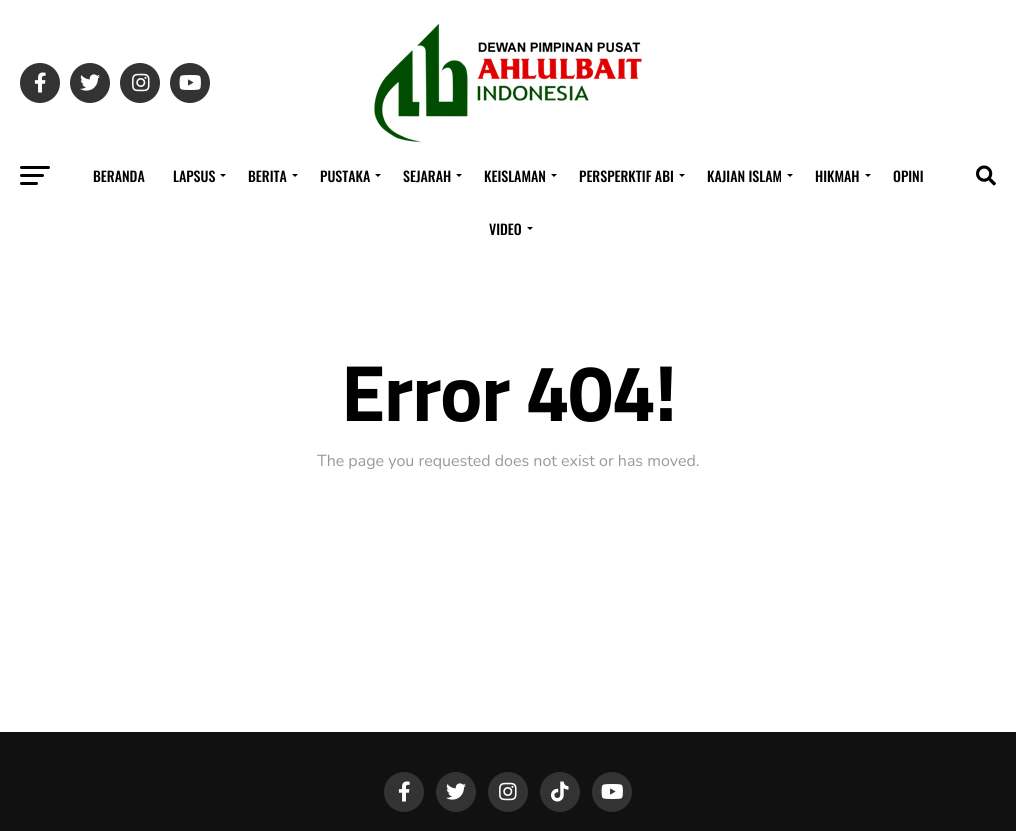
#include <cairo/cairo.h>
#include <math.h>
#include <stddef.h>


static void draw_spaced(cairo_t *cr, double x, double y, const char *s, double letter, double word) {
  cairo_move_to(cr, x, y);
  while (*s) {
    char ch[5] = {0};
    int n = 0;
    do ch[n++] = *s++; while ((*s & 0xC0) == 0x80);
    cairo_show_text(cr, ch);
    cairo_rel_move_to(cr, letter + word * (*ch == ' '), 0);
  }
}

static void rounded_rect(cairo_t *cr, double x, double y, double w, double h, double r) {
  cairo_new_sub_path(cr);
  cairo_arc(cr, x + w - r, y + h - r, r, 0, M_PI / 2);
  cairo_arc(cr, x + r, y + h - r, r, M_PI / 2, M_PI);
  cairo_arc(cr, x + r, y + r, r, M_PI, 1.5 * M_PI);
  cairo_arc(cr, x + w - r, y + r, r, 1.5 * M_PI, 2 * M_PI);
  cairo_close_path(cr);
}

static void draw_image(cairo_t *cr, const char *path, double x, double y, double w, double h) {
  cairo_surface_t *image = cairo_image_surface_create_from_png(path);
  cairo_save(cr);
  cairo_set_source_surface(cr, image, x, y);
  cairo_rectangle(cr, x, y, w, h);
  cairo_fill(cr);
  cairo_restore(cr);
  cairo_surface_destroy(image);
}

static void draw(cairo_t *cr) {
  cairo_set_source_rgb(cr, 1, 1, 1);
  cairo_paint(cr);
  cairo_set_source_rgb(cr, 51 / 255.0, 51 / 255.0, 51 / 255.0);
  cairo_arc(cr, 40, 83, 20, 0, 2 * M_PI);
  cairo_fill(cr);
  draw_image(cr, "images/1.png", 34, 72, 12, 21);
  cairo_arc(cr, 90, 83, 20, 0, 2 * M_PI);
  cairo_fill(cr);
  draw_image(cr, "images/2.png", 80, 74, 20, 17);
  cairo_arc(cr, 140, 83, 20, 0, 2 * M_PI);
  cairo_fill(cr);
  draw_image(cr, "images/3.png", 132, 73, 18, 19);
  cairo_arc(cr, 190, 83, 20, 0, 2 * M_PI);
  cairo_fill(cr);
  draw_image(cr, "images/4.png", 179, 75, 22, 15);
  draw_image(cr, "images/5.png", 374, 23, 268, 120);
  cairo_set_source_rgb(cr, 0, 0, 0);
  rounded_rect(cr, 20, 166, 30, 3, 1.5);
  cairo_fill(cr);
  rounded_rect(cr, 20, 174, 24, 3, 1.5);
  cairo_fill(cr);
  rounded_rect(cr, 20, 182, 18, 3, 1.5);
  cairo_fill(cr);
  cairo_new_path(cr);
  cairo_move_to(cr, 220, 174);
  cairo_line_to(cr, 226, 174);
  cairo_line_to(cr, 223, 177);
  cairo_close_path(cr);
  cairo_fill(cr);
  cairo_new_path(cr);
  cairo_move_to(cr, 292, 174);
  cairo_line_to(cr, 298, 174);
  cairo_line_to(cr, 295, 177);
  cairo_close_path(cr);
  cairo_fill(cr);
  cairo_new_path(cr);
  cairo_move_to(cr, 375, 174);
  cairo_line_to(cr, 381, 174);
  cairo_line_to(cr, 378, 177);
  cairo_close_path(cr);
  cairo_fill(cr);
  cairo_new_path(cr);
  cairo_move_to(cr, 456, 174);
  cairo_line_to(cr, 462, 174);
  cairo_line_to(cr, 459, 177);
  cairo_close_path(cr);
  cairo_fill(cr);
  cairo_new_path(cr);
  cairo_move_to(cr, 551, 174);
  cairo_line_to(cr, 557, 174);
  cairo_line_to(cr, 554, 177);
  cairo_close_path(cr);
  cairo_fill(cr);
  cairo_new_path(cr);
  cairo_move_to(cr, 679, 174);
  cairo_line_to(cr, 685, 174);
  cairo_line_to(cr, 682, 177);
  cairo_close_path(cr);
  cairo_fill(cr);
  cairo_new_path(cr);
  cairo_move_to(cr, 787, 174);
  cairo_line_to(cr, 793, 174);
  cairo_line_to(cr, 790, 177);
  cairo_close_path(cr);
  cairo_fill(cr);
  cairo_new_path(cr);
  cairo_move_to(cr, 865, 174);
  cairo_line_to(cr, 871, 174);
  cairo_line_to(cr, 868, 177);
  cairo_close_path(cr);
  cairo_fill(cr);
  cairo_new_path(cr);
  cairo_move_to(cr, 527, 227);
  cairo_line_to(cr, 533, 227);
  cairo_line_to(cr, 530, 230);
  cairo_close_path(cr);
  cairo_fill(cr);
  draw_image(cr, "images/6.png", 976, 165, 20, 21);
  cairo_set_source_rgb(cr, 17 / 255.0, 17 / 255.0, 17 / 255.0);
  cairo_rectangle(cr, 0, 732, 1016, 99);
  cairo_fill(cr);
  cairo_set_source_rgb(cr, 51 / 255.0, 51 / 255.0, 51 / 255.0);
  cairo_arc(cr, 404, 792, 20, 0, 2 * M_PI);
  cairo_fill(cr);
  draw_image(cr, "images/1.png", 398, 781, 12, 21);
  cairo_arc(cr, 456, 792, 20, 0, 2 * M_PI);
  cairo_fill(cr);
  draw_image(cr, "images/2.png", 446, 783, 20, 17);
  cairo_arc(cr, 508, 792, 20, 0, 2 * M_PI);
  cairo_fill(cr);
  draw_image(cr, "images/3.png", 499, 782, 18, 19);
  cairo_arc(cr, 560, 792, 20, 0, 2 * M_PI);
  cairo_fill(cr);
  draw_image(cr, "images/7.png", 551, 781, 18, 21);
  cairo_arc(cr, 612, 792, 20, 0, 2 * M_PI);
  cairo_fill(cr);
  draw_image(cr, "images/4.png", 601, 784, 22, 15);
  cairo_select_font_face(cr, "Oswald Medium", CAIRO_FONT_SLANT_NORMAL, CAIRO_FONT_WEIGHT_NORMAL);
  cairo_set_font_size(cr, 14);
  cairo_set_source_rgb(cr, 0, 0, 0);
  cairo_move_to(cr, 93, 182);
  cairo_show_text(cr, "BERANDA");
  cairo_move_to(cr, 173, 182);
  cairo_show_text(cr, "LAPSUS");
  cairo_move_to(cr, 248, 182);
  cairo_show_text(cr, "BERITA");
  cairo_move_to(cr, 320, 182);
  cairo_show_text(cr, "PUSTAKA");
  cairo_move_to(cr, 403, 182);
  cairo_show_text(cr, "SEJARAH");
  cairo_move_to(cr, 484, 182);
  cairo_show_text(cr, "KEISLAMAN");
  cairo_move_to(cr, 579, 182);
  cairo_show_text(cr, "PERSPERKTIF ABI");
  cairo_move_to(cr, 707, 182);
  cairo_show_text(cr, "KAJIAN ISLAM");
  cairo_move_to(cr, 815, 182);
  cairo_show_text(cr, "HIKMAH");
  cairo_move_to(cr, 893, 182);
  cairo_show_text(cr, "OPINI");
  cairo_move_to(cr, 489, 235);
  cairo_show_text(cr, "VIDEO");
  cairo_select_font_face(cr, "Titillium Web", CAIRO_FONT_SLANT_NORMAL, CAIRO_FONT_WEIGHT_BOLD);
  cairo_set_font_size(cr, 80);
  draw_spaced(cr, 341, 421, "Error 404!", -1.6, 0);
  cairo_select_font_face(cr, "Nunito", CAIRO_FONT_SLANT_NORMAL, CAIRO_FONT_WEIGHT_NORMAL);
  cairo_set_font_size(cr, 16);
  cairo_set_source_rgb(cr, 153 / 255.0, 153 / 255.0, 153 / 255.0);
  cairo_move_to(cr, 317, 466);
  cairo_show_text(cr, "The page you requested does not exist or has moved.");
}

int main(void) {
  cairo_surface_t *surface = cairo_image_surface_create(CAIRO_FORMAT_RGB24, 1016, 831);
  cairo_t *cr = cairo_create(surface);
  cairo_font_options_t *options = cairo_font_options_create();
  cairo_font_options_set_hint_metrics(options, CAIRO_HINT_METRICS_OFF);
  cairo_font_options_set_hint_style(options, CAIRO_HINT_STYLE_NONE);
  cairo_set_font_options(cr, options);
  cairo_set_miter_limit(cr, 4);
  draw(cr);
  cairo_surface_write_to_png(surface, "out.png");
  cairo_font_options_destroy(options);
  cairo_destroy(cr);
  cairo_surface_destroy(surface);
  return 0;
}
